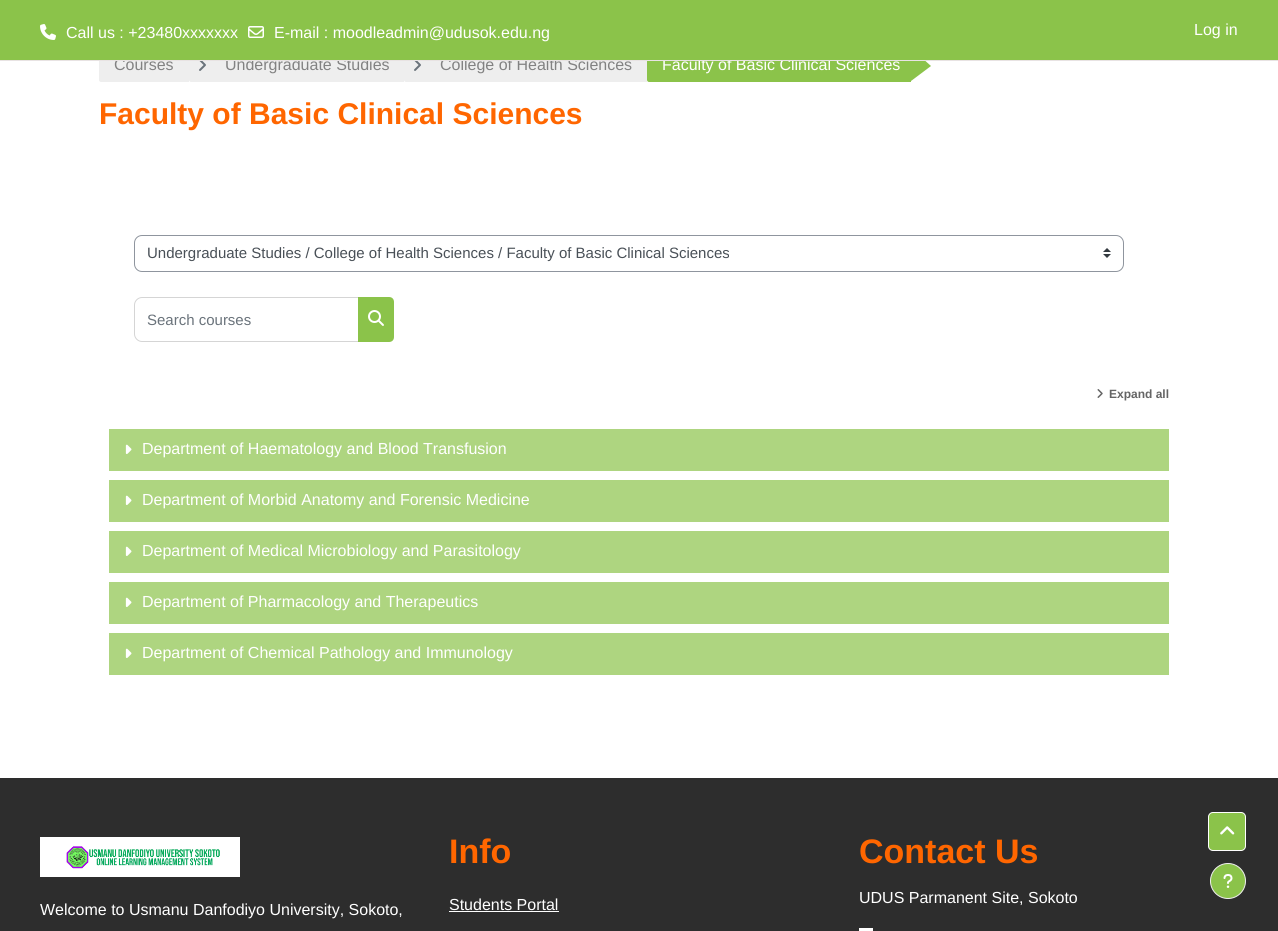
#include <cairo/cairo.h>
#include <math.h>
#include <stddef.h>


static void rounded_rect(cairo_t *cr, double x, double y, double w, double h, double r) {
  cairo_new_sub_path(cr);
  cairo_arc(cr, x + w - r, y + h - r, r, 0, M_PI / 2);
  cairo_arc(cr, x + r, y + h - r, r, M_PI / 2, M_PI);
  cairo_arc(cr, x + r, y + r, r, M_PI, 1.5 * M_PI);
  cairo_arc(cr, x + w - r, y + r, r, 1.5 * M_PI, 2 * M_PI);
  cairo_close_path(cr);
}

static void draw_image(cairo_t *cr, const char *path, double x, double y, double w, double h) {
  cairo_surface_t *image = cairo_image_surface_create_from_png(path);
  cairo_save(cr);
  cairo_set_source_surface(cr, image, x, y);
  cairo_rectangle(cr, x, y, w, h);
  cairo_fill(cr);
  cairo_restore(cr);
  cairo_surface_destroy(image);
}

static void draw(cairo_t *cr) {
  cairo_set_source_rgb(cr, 1, 1, 1);
  cairo_paint(cr);
  cairo_set_source_rgb(cr, 238 / 255.0, 238 / 255.0, 238 / 255.0);
  cairo_new_path(cr);
  cairo_move_to(cr, 101, 48);
  cairo_line_to(cr, 189, 48);
  cairo_line_to(cr, 189, 82);
  cairo_line_to(cr, 101, 82);
  cairo_curve_to(cr, 100, 82, 99, 81, 99, 80);
  cairo_line_to(cr, 99, 50);
  cairo_curve_to(cr, 99, 49, 100, 48, 101, 48);
  cairo_close_path(cr);
  cairo_fill(cr);
  cairo_new_path(cr);
  cairo_move_to(cr, 191, 48);
  cairo_line_to(cr, 404, 48);
  cairo_line_to(cr, 404, 82);
  cairo_line_to(cr, 191, 82);
  cairo_curve_to(cr, 190, 82, 189, 81, 189, 80);
  cairo_line_to(cr, 189, 50);
  cairo_curve_to(cr, 189, 49, 190, 48, 191, 48);
  cairo_close_path(cr);
  cairo_fill(cr);
  draw_image(cr, "images/3.png", 199, 61, 7, 10);
  cairo_new_path(cr);
  cairo_move_to(cr, 406, 48);
  cairo_line_to(cr, 647, 48);
  cairo_line_to(cr, 647, 82);
  cairo_line_to(cr, 406, 82);
  cairo_curve_to(cr, 405, 82, 404, 81, 404, 80);
  cairo_line_to(cr, 404, 50);
  cairo_curve_to(cr, 404, 49, 405, 48, 406, 48);
  cairo_close_path(cr);
  cairo_fill(cr);
  draw_image(cr, "images/3.png", 414, 61, 7, 10);
  cairo_set_source_rgb(cr, 139 / 255.0, 195 / 255.0, 74 / 255.0);
  cairo_new_path(cr);
  cairo_move_to(cr, 649, 48);
  cairo_line_to(cr, 911, 48);
  cairo_line_to(cr, 911, 82);
  cairo_line_to(cr, 649, 82);
  cairo_curve_to(cr, 648, 82, 647, 81, 647, 80);
  cairo_line_to(cr, 647, 50);
  cairo_curve_to(cr, 647, 49, 648, 48, 649, 48);
  cairo_close_path(cr);
  cairo_fill(cr);
  cairo_new_path(cr);
  cairo_move_to(cr, 911, 81);
  cairo_line_to(cr, 911, 48);
  cairo_line_to(cr, 931, 66);
  cairo_close_path(cr);
  cairo_fill(cr);
  draw_image(cr, "images/4.png", 1103, 248, 8, 10);
  rounded_rect(cr, 134.5, 235.5, 989, 36, 7.5);
  cairo_set_source_rgb(cr, 143 / 255.0, 149 / 255.0, 158 / 255.0);
  cairo_set_line_width(cr, 1);
  cairo_stroke(cr);
  cairo_new_path(cr);
  cairo_move_to(cr, 142, 297.5);
  cairo_line_to(cr, 358.5, 297.5);
  cairo_line_to(cr, 358.5, 341.5);
  cairo_line_to(cr, 142, 341.5);
  cairo_curve_to(cr, 138, 341.5, 134.5, 338, 134.5, 334);
  cairo_line_to(cr, 134.5, 305);
  cairo_curve_to(cr, 134.5, 301, 138, 297.5, 142, 297.5);
  cairo_close_path(cr);
  cairo_set_source_rgb(cr, 213 / 255.0, 213 / 255.0, 213 / 255.0);
  cairo_stroke(cr);
  cairo_set_source_rgb(cr, 139 / 255.0, 195 / 255.0, 74 / 255.0);
  cairo_new_path(cr);
  cairo_move_to(cr, 358, 297);
  cairo_line_to(cr, 389, 297);
  cairo_curve_to(cr, 392, 297, 394, 299, 394, 302);
  cairo_line_to(cr, 394, 337);
  cairo_curve_to(cr, 394, 340, 392, 342, 389, 342);
  cairo_line_to(cr, 358, 342);
  cairo_close_path(cr);
  cairo_fill(cr);
  draw_image(cr, "images/5.png", 368, 310, 16, 16);
  draw_image(cr, "images/6.png", 1097, 389, 6, 9);
  cairo_set_source_rgb(cr, 174 / 255.0, 213 / 255.0, 128 / 255.0);
  cairo_rectangle(cr, 109, 429, 1060, 42);
  cairo_fill(cr);
  draw_image(cr, "images/7.png", 125, 444, 7, 10);
  cairo_rectangle(cr, 109, 480, 1060, 42);
  cairo_fill(cr);
  draw_image(cr, "images/7.png", 125, 495, 7, 10);
  cairo_rectangle(cr, 109, 531, 1060, 42);
  cairo_fill(cr);
  draw_image(cr, "images/7.png", 125, 546, 7, 10);
  cairo_rectangle(cr, 109, 582, 1060, 42);
  cairo_fill(cr);
  draw_image(cr, "images/7.png", 125, 597, 7, 10);
  cairo_rectangle(cr, 109, 633, 1060, 42);
  cairo_fill(cr);
  draw_image(cr, "images/7.png", 125, 648, 7, 10);
  cairo_set_source_rgb(cr, 45 / 255.0, 45 / 255.0, 45 / 255.0);
  cairo_rectangle(cr, 0, 778, 1278, 153);
  cairo_fill(cr);
  cairo_set_source_rgb(cr, 139 / 255.0, 195 / 255.0, 74 / 255.0);
  rounded_rect(cr, 1208.5, 812.5, 37, 38, 4.5);
  cairo_fill_preserve(cr);
  cairo_set_source_rgb(cr, 1, 1, 1);
  cairo_stroke(cr);
  draw_image(cr, "images/8.png", 1220, 826, 15, 9);
  cairo_rectangle(cr, 449, 911, 110, 1);
  cairo_fill(cr);
  cairo_rectangle(cr, 859, 928, 14, 3);
  cairo_fill(cr);
  draw_image(cr, "images/9.png", 40, 837, 200, 40);
  cairo_set_source_rgb(cr, 139 / 255.0, 195 / 255.0, 74 / 255.0);
  cairo_arc(cr, 1228, 881, 17.5, 0, 2 * M_PI);
  cairo_fill_preserve(cr);
  cairo_set_source_rgb(cr, 238 / 255.0, 238 / 255.0, 238 / 255.0);
  cairo_stroke(cr);
  draw_image(cr, "images/10.png", 1223, 874, 10, 14);
  cairo_select_font_face(cr, "Liberation Sans", CAIRO_FONT_SLANT_NORMAL, CAIRO_FONT_WEIGHT_NORMAL);
  cairo_set_font_size(cr, 16);
  cairo_set_source_rgb(cr, 130 / 255.0, 130 / 255.0, 130 / 255.0);
  cairo_move_to(cr, 114, 70);
  cairo_show_text(cr, "Courses");
  cairo_move_to(cr, 225, 70);
  cairo_show_text(cr, "Undergraduate Studies");
  cairo_move_to(cr, 440, 70);
  cairo_show_text(cr, "College of Health Sciences");
  cairo_set_source_rgb(cr, 1, 1, 1);
  cairo_move_to(cr, 662, 70);
  cairo_show_text(cr, "Faculty of Basic Clinical Sciences");
  cairo_set_source_rgb(cr, 139 / 255.0, 195 / 255.0, 74 / 255.0);
  cairo_rectangle(cr, 0, 0, 1278, 60);
  cairo_fill(cr);
  cairo_set_source_rgb(cr, 1, 1, 1);
  cairo_move_to(cr, 1194, 35);
  cairo_show_text(cr, "Log in");
  cairo_move_to(cr, 274, 38);
  cairo_show_text(cr, "E-mail : moodleadmin@udusok.edu.ng");
  draw_image(cr, "images/2.png", 248, 26, 16, 12);
  cairo_move_to(cr, 66, 38);
  cairo_show_text(cr, "Call us : +23480xxxxxxx");
  draw_image(cr, "images/1.png", 40, 24, 16, 16);
  cairo_set_source_rgb(cr, 232 / 255.0, 227 / 255.0, 227 / 255.0);
  cairo_rectangle(cr, 0, 60, 1278, 1);
  cairo_fill(cr);
  cairo_select_font_face(cr, "Liberation Sans", CAIRO_FONT_SLANT_NORMAL, CAIRO_FONT_WEIGHT_BOLD);
  cairo_set_font_size(cr, 30);
  cairo_set_source_rgb(cr, 1, 102 / 255.0, 0);
  cairo_move_to(cr, 99, 124);
  cairo_show_text(cr, "Faculty of Basic Clinical Sciences");
  cairo_select_font_face(cr, "Liberation Sans", CAIRO_FONT_SLANT_NORMAL, CAIRO_FONT_WEIGHT_NORMAL);
  cairo_set_font_size(cr, 15);
  cairo_set_source_rgb(cr, 73 / 255.0, 80 / 255.0, 87 / 255.0);
  cairo_move_to(cr, 147, 258);
  cairo_show_text(cr, "Undergraduate Studies / College of Health Sciences / Faculty of Basic Clinical Sciences");
  cairo_set_source_rgb(cr, 106 / 255.0, 115 / 255.0, 123 / 255.0);
  cairo_move_to(cr, 147, 325);
  cairo_show_text(cr, "Search courses");
  cairo_select_font_face(cr, "Liberation Sans", CAIRO_FONT_SLANT_NORMAL, CAIRO_FONT_WEIGHT_BOLD);
  cairo_set_font_size(cr, 12);
  cairo_set_source_rgb(cr, 101 / 255.0, 101 / 255.0, 101 / 255.0);
  cairo_move_to(cr, 1109, 398);
  cairo_show_text(cr, "Expand all");
  cairo_select_font_face(cr, "Liberation Sans", CAIRO_FONT_SLANT_NORMAL, CAIRO_FONT_WEIGHT_NORMAL);
  cairo_set_font_size(cr, 16);
  cairo_set_source_rgb(cr, 1, 1, 1);
  cairo_move_to(cr, 142, 454);
  cairo_show_text(cr, "Department of Haematology and Blood Transfusion");
  cairo_move_to(cr, 142, 505);
  cairo_show_text(cr, "Department of Morbid Anatomy and Forensic Medicine");
  cairo_move_to(cr, 142, 556);
  cairo_show_text(cr, "Department of Medical Microbiology and Parasitology");
  cairo_move_to(cr, 142, 607);
  cairo_show_text(cr, "Department of Pharmacology and Therapeutics");
  cairo_move_to(cr, 142, 658);
  cairo_show_text(cr, "Department of Chemical Pathology and Immunology");
  cairo_select_font_face(cr, "Liberation Sans", CAIRO_FONT_SLANT_NORMAL, CAIRO_FONT_WEIGHT_BOLD);
  cairo_set_font_size(cr, 34);
  cairo_set_source_rgb(cr, 1, 102 / 255.0, 0);
  cairo_move_to(cr, 449, 863);
  cairo_show_text(cr, "Info");
  cairo_select_font_face(cr, "Liberation Sans", CAIRO_FONT_SLANT_NORMAL, CAIRO_FONT_WEIGHT_NORMAL);
  cairo_set_font_size(cr, 16);
  cairo_set_source_rgb(cr, 1, 1, 1);
  cairo_move_to(cr, 449, 910);
  cairo_show_text(cr, "Students Portal");
  cairo_select_font_face(cr, "Liberation Sans", CAIRO_FONT_SLANT_NORMAL, CAIRO_FONT_WEIGHT_BOLD);
  cairo_set_font_size(cr, 34);
  cairo_set_source_rgb(cr, 1, 102 / 255.0, 0);
  cairo_move_to(cr, 859, 863);
  cairo_show_text(cr, "Contact Us");
  cairo_select_font_face(cr, "Liberation Sans", CAIRO_FONT_SLANT_NORMAL, CAIRO_FONT_WEIGHT_NORMAL);
  cairo_set_font_size(cr, 16);
  cairo_set_source_rgb(cr, 1, 1, 1);
  cairo_move_to(cr, 859, 903);
  cairo_show_text(cr, "UDUS Parmanent Site, Sokoto");
  cairo_move_to(cr, 40, 915);
  cairo_show_text(cr, "Welcome to Usmanu Danfodiyo University, Sokoto,");
}

int main(void) {
  cairo_surface_t *surface = cairo_image_surface_create(CAIRO_FORMAT_RGB24, 1278, 931);
  cairo_t *cr = cairo_create(surface);
  cairo_font_options_t *options = cairo_font_options_create();
  cairo_font_options_set_hint_metrics(options, CAIRO_HINT_METRICS_OFF);
  cairo_font_options_set_hint_style(options, CAIRO_HINT_STYLE_NONE);
  cairo_set_font_options(cr, options);
  cairo_set_miter_limit(cr, 4);
  draw(cr);
  cairo_surface_write_to_png(surface, "out.png");
  cairo_font_options_destroy(options);
  cairo_destroy(cr);
  cairo_surface_destroy(surface);
  return 0;
}
